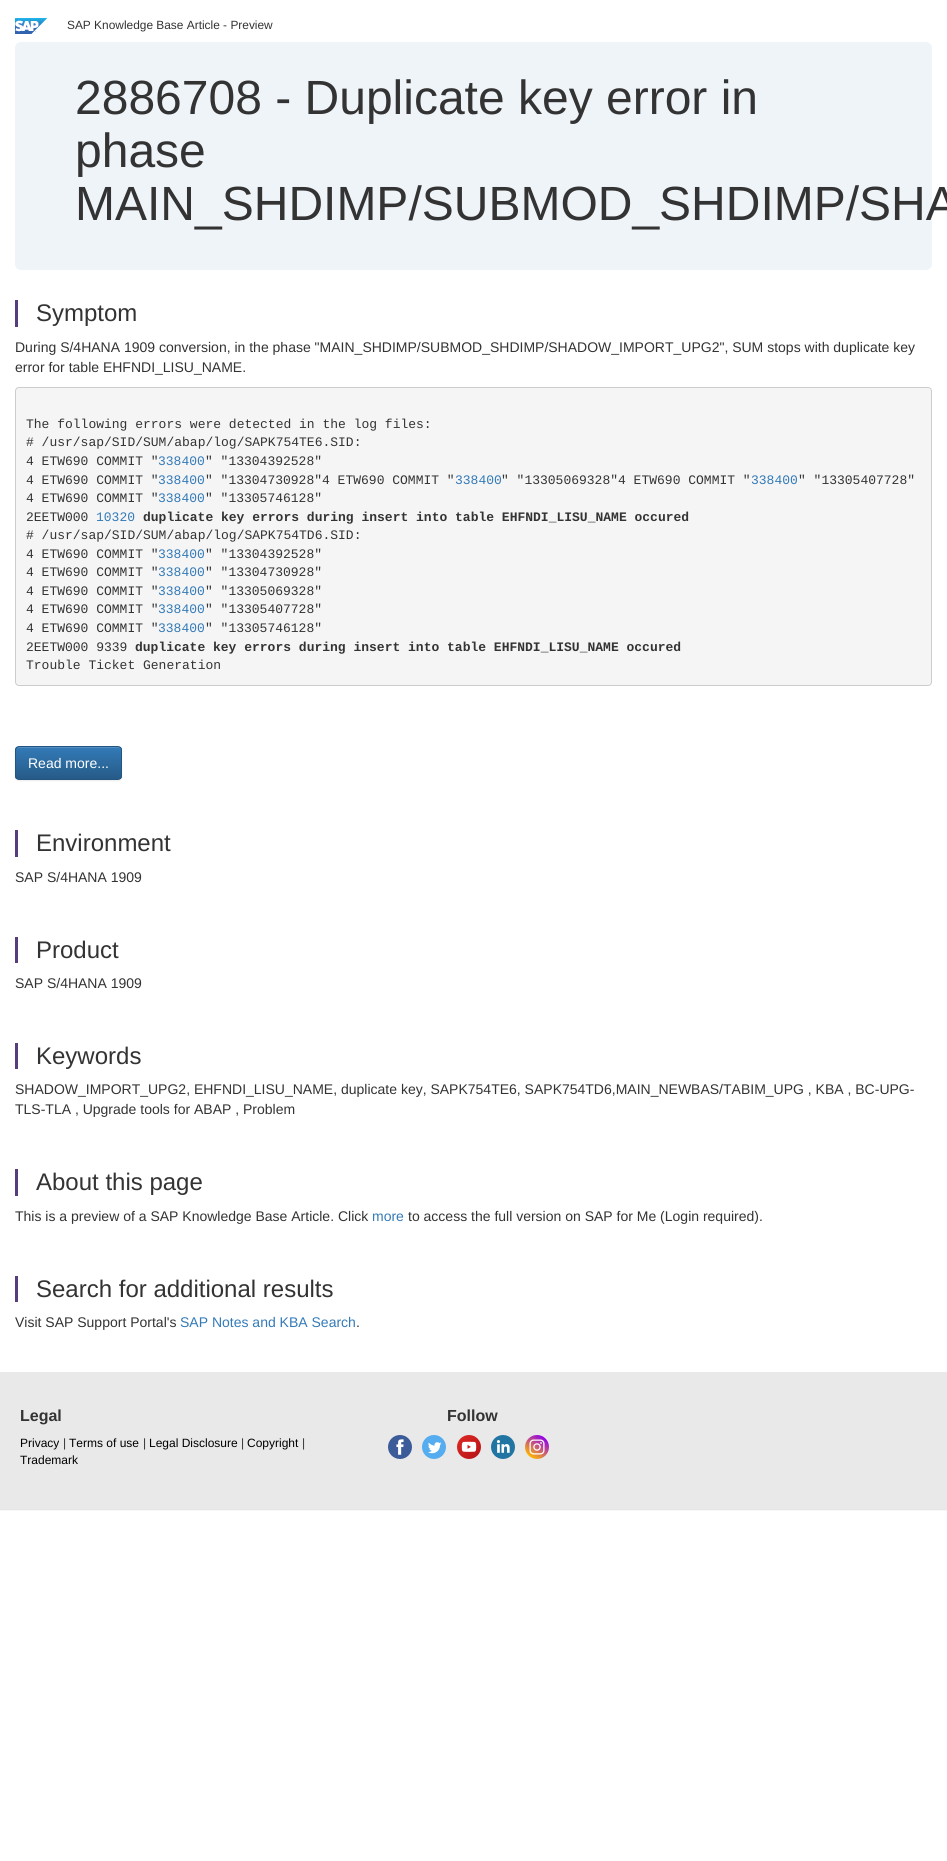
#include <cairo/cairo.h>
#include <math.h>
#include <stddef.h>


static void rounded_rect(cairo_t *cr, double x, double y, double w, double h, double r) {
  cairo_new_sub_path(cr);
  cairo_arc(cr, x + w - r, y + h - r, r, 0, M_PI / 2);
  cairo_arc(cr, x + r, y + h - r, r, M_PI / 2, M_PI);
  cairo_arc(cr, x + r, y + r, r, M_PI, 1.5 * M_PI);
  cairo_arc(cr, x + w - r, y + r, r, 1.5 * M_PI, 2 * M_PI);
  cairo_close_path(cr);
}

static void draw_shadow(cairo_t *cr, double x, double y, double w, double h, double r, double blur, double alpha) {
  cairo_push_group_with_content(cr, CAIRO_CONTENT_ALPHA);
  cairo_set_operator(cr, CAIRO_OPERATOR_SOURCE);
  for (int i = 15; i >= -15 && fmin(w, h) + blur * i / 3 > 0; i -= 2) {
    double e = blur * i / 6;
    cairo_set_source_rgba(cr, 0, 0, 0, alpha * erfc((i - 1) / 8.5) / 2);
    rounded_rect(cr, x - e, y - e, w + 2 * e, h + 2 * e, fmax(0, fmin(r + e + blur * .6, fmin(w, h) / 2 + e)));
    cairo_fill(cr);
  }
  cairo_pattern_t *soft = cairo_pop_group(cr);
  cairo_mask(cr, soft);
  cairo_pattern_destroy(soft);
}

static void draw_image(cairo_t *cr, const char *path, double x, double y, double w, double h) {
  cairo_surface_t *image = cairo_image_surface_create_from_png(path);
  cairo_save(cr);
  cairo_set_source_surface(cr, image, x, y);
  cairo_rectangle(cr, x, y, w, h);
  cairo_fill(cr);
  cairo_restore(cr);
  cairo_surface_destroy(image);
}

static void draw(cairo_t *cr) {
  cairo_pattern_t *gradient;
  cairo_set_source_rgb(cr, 1, 1, 1);
  cairo_paint(cr);
  draw_image(cr, "images/1.png", 15, 18, 32, 16);
  cairo_set_source_rgb(cr, 239 / 255.0, 244 / 255.0, 249 / 255.0);
  rounded_rect(cr, 15, 42, 917, 228, 6);
  cairo_fill(cr);
  cairo_set_source_rgb(cr, 86 / 255.0, 61 / 255.0, 124 / 255.0);
  cairo_rectangle(cr, 15, 300, 3, 27);
  cairo_fill(cr);
  cairo_set_source_rgb(cr, 245 / 255.0, 245 / 255.0, 245 / 255.0);
  rounded_rect(cr, 15.5, 387.5, 916, 298, 3.5);
  cairo_fill_preserve(cr);
  cairo_set_source_rgb(cr, 204 / 255.0, 204 / 255.0, 204 / 255.0);
  cairo_set_line_width(cr, 1);
  cairo_stroke(cr);
  cairo_set_source_rgb(cr, 0, 0, 0);
  draw_shadow(cr, 15, 747, 107, 34, 4, 0.5, 0.07);
  cairo_save(cr);
  rounded_rect(cr, 15, 746, 107, 34, 4);
  cairo_clip(cr);
  gradient = cairo_pattern_create_linear(69, 747, 69, 779);
  cairo_pattern_add_color_stop_rgba(gradient, 0, 51 / 255.0, 122 / 255.0, 183 / 255.0, 1);
  cairo_pattern_add_color_stop_rgba(gradient, 1, 38 / 255.0, 90 / 255.0, 136 / 255.0, 1);
  cairo_set_source(cr, gradient);
  cairo_pattern_destroy(gradient);
  cairo_rectangle(cr, 15, 747, 107, 32);
  cairo_fill(cr);
  cairo_restore(cr);
  cairo_set_source_rgb(cr, 82 / 255.0, 142 / 255.0, 193 / 255.0);
  cairo_new_path(cr);
  cairo_move_to(cr, 19, 748);
  cairo_line_to(cr, 118, 748);
  cairo_curve_to(cr, 120, 748, 121, 749, 121, 751);
  cairo_curve_to(cr, 121, 743, 104, 747, 102, 747);
  cairo_line_to(cr, 36, 747);
  cairo_curve_to(cr, 33, 747, 16, 743, 16, 751);
  cairo_curve_to(cr, 16, 749, 17, 748, 19, 748);
  cairo_close_path(cr);
  cairo_fill(cr);
  rounded_rect(cr, 15.5, 746.5, 106, 33, 3.5);
  cairo_set_source_rgb(cr, 36 / 255.0, 85 / 255.0, 128 / 255.0);
  cairo_stroke(cr);
  cairo_set_source_rgb(cr, 86 / 255.0, 61 / 255.0, 124 / 255.0);
  cairo_rectangle(cr, 15, 830, 3, 27);
  cairo_fill(cr);
  cairo_rectangle(cr, 15, 937, 3, 26);
  cairo_fill(cr);
  cairo_rectangle(cr, 15, 1043, 3, 26);
  cairo_fill(cr);
  cairo_rectangle(cr, 15, 1169, 3, 27);
  cairo_fill(cr);
  cairo_rectangle(cr, 15, 1276, 3, 26);
  cairo_fill(cr);
  cairo_set_source_rgb(cr, 0, 0, 0);
  draw_shadow(cr, 0, 1373, 947, 137, 0, 0.5, 0.12);
  cairo_set_source_rgb(cr, 233 / 255.0, 233 / 255.0, 233 / 255.0);
  cairo_rectangle(cr, 0, 1372, 947, 137);
  cairo_fill(cr);
  draw_image(cr, "images/2.png", 388, 1435, 24, 24);
  draw_image(cr, "images/3.png", 422, 1435, 24, 24);
  draw_image(cr, "images/4.png", 457, 1435, 24, 24);
  draw_image(cr, "images/5.png", 491, 1435, 24, 24);
  draw_image(cr, "images/6.png", 525, 1435, 24, 24);
  cairo_select_font_face(cr, "Liberation Sans", CAIRO_FONT_SLANT_NORMAL, CAIRO_FONT_WEIGHT_NORMAL);
  cairo_set_font_size(cr, 11.9);
  cairo_set_source_rgb(cr, 51 / 255.0, 51 / 255.0, 51 / 255.0);
  cairo_move_to(cr, 67, 29);
  cairo_show_text(cr, "SAP Knowledge Base Article - Preview");
  cairo_set_font_size(cr, 48);
  cairo_move_to(cr, 75, 114);
  cairo_show_text(cr, "2886708 - Duplicate key error in");
  cairo_move_to(cr, 75, 167);
  cairo_show_text(cr, "phase");
  cairo_move_to(cr, 75, 220);
  cairo_show_text(cr, "MAIN_SHDIMP/SUBMOD_SHDIMP/SHA");
  cairo_set_font_size(cr, 24);
  cairo_move_to(cr, 36, 321);
  cairo_show_text(cr, "Symptom");
  cairo_set_font_size(cr, 14);
  cairo_move_to(cr, 15, 352);
  cairo_show_text(cr, "During S/4HANA 1909 conversion, in the phase \"MAIN_SHDIMP/SUBMOD_SHDIMP/SHADOW_IMPORT_UPG2\", SUM stops with duplicate key");
  cairo_move_to(cr, 15, 372);
  cairo_show_text(cr, "error for table EHFNDI_LISU_NAME.");
  cairo_select_font_face(cr, "Liberation Mono", CAIRO_FONT_SLANT_NORMAL, CAIRO_FONT_WEIGHT_NORMAL);
  cairo_set_font_size(cr, 13);
  cairo_move_to(cr, 26, 428);
  cairo_show_text(cr, "The following errors were detected in the log files:");
  cairo_move_to(cr, 26, 446);
  cairo_show_text(cr, "# /usr/sap/SID/SUM/abap/log/SAPK754TE6.SID:");
  cairo_move_to(cr, 26, 465);
  cairo_show_text(cr, "4 ETW690 COMMIT \"");
  cairo_set_source_rgb(cr, 51 / 255.0, 122 / 255.0, 183 / 255.0);
  cairo_move_to(cr, 158, 465);
  cairo_show_text(cr, "338400");
  cairo_set_source_rgb(cr, 51 / 255.0, 51 / 255.0, 51 / 255.0);
  cairo_move_to(cr, 205, 465);
  cairo_show_text(cr, "\" \"13304392528\"");
  cairo_move_to(cr, 26, 484);
  cairo_show_text(cr, "4 ETW690 COMMIT \"");
  cairo_set_source_rgb(cr, 51 / 255.0, 122 / 255.0, 183 / 255.0);
  cairo_move_to(cr, 158, 484);
  cairo_show_text(cr, "338400");
  cairo_set_source_rgb(cr, 51 / 255.0, 51 / 255.0, 51 / 255.0);
  cairo_move_to(cr, 205, 484);
  cairo_show_text(cr, "\" \"13304730928\"4 ETW690 COMMIT \"");
  cairo_set_source_rgb(cr, 51 / 255.0, 122 / 255.0, 183 / 255.0);
  cairo_move_to(cr, 455, 484);
  cairo_show_text(cr, "338400");
  cairo_set_source_rgb(cr, 51 / 255.0, 51 / 255.0, 51 / 255.0);
  cairo_move_to(cr, 501, 484);
  cairo_show_text(cr, "\" \"13305069328\"4 ETW690 COMMIT \"");
  cairo_set_source_rgb(cr, 51 / 255.0, 122 / 255.0, 183 / 255.0);
  cairo_move_to(cr, 751, 484);
  cairo_show_text(cr, "338400");
  cairo_set_source_rgb(cr, 51 / 255.0, 51 / 255.0, 51 / 255.0);
  cairo_move_to(cr, 798, 484);
  cairo_show_text(cr, "\" \"13305407728\"");
  cairo_move_to(cr, 26, 502);
  cairo_show_text(cr, "4 ETW690 COMMIT \"");
  cairo_set_source_rgb(cr, 51 / 255.0, 122 / 255.0, 183 / 255.0);
  cairo_move_to(cr, 158, 502);
  cairo_show_text(cr, "338400");
  cairo_set_source_rgb(cr, 51 / 255.0, 51 / 255.0, 51 / 255.0);
  cairo_move_to(cr, 205, 502);
  cairo_show_text(cr, "\" \"13305746128\"");
  cairo_move_to(cr, 26, 521);
  cairo_show_text(cr, "2EETW000");
  cairo_set_source_rgb(cr, 51 / 255.0, 122 / 255.0, 183 / 255.0);
  cairo_move_to(cr, 96, 521);
  cairo_show_text(cr, "10320");
  cairo_select_font_face(cr, "Liberation Mono", CAIRO_FONT_SLANT_NORMAL, CAIRO_FONT_WEIGHT_BOLD);
  cairo_set_source_rgb(cr, 51 / 255.0, 51 / 255.0, 51 / 255.0);
  cairo_move_to(cr, 143, 521);
  cairo_show_text(cr, "duplicate key errors during insert into table EHFNDI_LISU_NAME occured");
  cairo_select_font_face(cr, "Liberation Mono", CAIRO_FONT_SLANT_NORMAL, CAIRO_FONT_WEIGHT_NORMAL);
  cairo_move_to(cr, 26, 539);
  cairo_show_text(cr, "# /usr/sap/SID/SUM/abap/log/SAPK754TD6.SID:");
  cairo_move_to(cr, 26, 558);
  cairo_show_text(cr, "4 ETW690 COMMIT \"");
  cairo_set_source_rgb(cr, 51 / 255.0, 122 / 255.0, 183 / 255.0);
  cairo_move_to(cr, 158, 558);
  cairo_show_text(cr, "338400");
  cairo_set_source_rgb(cr, 51 / 255.0, 51 / 255.0, 51 / 255.0);
  cairo_move_to(cr, 205, 558);
  cairo_show_text(cr, "\" \"13304392528\"");
  cairo_move_to(cr, 26, 576);
  cairo_show_text(cr, "4 ETW690 COMMIT \"");
  cairo_set_source_rgb(cr, 51 / 255.0, 122 / 255.0, 183 / 255.0);
  cairo_move_to(cr, 158, 576);
  cairo_show_text(cr, "338400");
  cairo_set_source_rgb(cr, 51 / 255.0, 51 / 255.0, 51 / 255.0);
  cairo_move_to(cr, 205, 576);
  cairo_show_text(cr, "\" \"13304730928\"");
  cairo_move_to(cr, 26, 595);
  cairo_show_text(cr, "4 ETW690 COMMIT \"");
  cairo_set_source_rgb(cr, 51 / 255.0, 122 / 255.0, 183 / 255.0);
  cairo_move_to(cr, 158, 595);
  cairo_show_text(cr, "338400");
  cairo_set_source_rgb(cr, 51 / 255.0, 51 / 255.0, 51 / 255.0);
  cairo_move_to(cr, 205, 595);
  cairo_show_text(cr, "\" \"13305069328\"");
  cairo_move_to(cr, 26, 613);
  cairo_show_text(cr, "4 ETW690 COMMIT \"");
  cairo_set_source_rgb(cr, 51 / 255.0, 122 / 255.0, 183 / 255.0);
  cairo_move_to(cr, 158, 613);
  cairo_show_text(cr, "338400");
  cairo_set_source_rgb(cr, 51 / 255.0, 51 / 255.0, 51 / 255.0);
  cairo_move_to(cr, 205, 613);
  cairo_show_text(cr, "\" \"13305407728\"");
  cairo_move_to(cr, 26, 632);
  cairo_show_text(cr, "4 ETW690 COMMIT \"");
  cairo_set_source_rgb(cr, 51 / 255.0, 122 / 255.0, 183 / 255.0);
  cairo_move_to(cr, 158, 632);
  cairo_show_text(cr, "338400");
  cairo_set_source_rgb(cr, 51 / 255.0, 51 / 255.0, 51 / 255.0);
  cairo_move_to(cr, 205, 632);
  cairo_show_text(cr, "\" \"13305746128\"");
  cairo_move_to(cr, 26, 651);
  cairo_show_text(cr, "2EETW000 9339");
  cairo_select_font_face(cr, "Liberation Mono", CAIRO_FONT_SLANT_NORMAL, CAIRO_FONT_WEIGHT_BOLD);
  cairo_move_to(cr, 135, 651);
  cairo_show_text(cr, "duplicate key errors during insert into table EHFNDI_LISU_NAME occured");
  cairo_select_font_face(cr, "Liberation Mono", CAIRO_FONT_SLANT_NORMAL, CAIRO_FONT_WEIGHT_NORMAL);
  cairo_move_to(cr, 26, 669);
  cairo_show_text(cr, "Trouble Ticket Generation");
  cairo_select_font_face(cr, "Liberation Sans", CAIRO_FONT_SLANT_NORMAL, CAIRO_FONT_WEIGHT_NORMAL);
  cairo_set_font_size(cr, 14);
  cairo_set_source_rgb(cr, 1, 1, 1);
  cairo_move_to(cr, 28, 768);
  cairo_show_text(cr, "Read more...");
  cairo_set_font_size(cr, 24);
  cairo_set_source_rgb(cr, 51 / 255.0, 51 / 255.0, 51 / 255.0);
  cairo_move_to(cr, 36, 851);
  cairo_show_text(cr, "Environment");
  cairo_set_font_size(cr, 14);
  cairo_move_to(cr, 15, 882);
  cairo_show_text(cr, "SAP S/4HANA 1909");
  cairo_set_font_size(cr, 24);
  cairo_move_to(cr, 36, 958);
  cairo_show_text(cr, "Product");
  cairo_set_font_size(cr, 14);
  cairo_move_to(cr, 15, 988);
  cairo_show_text(cr, "SAP S/4HANA 1909");
  cairo_set_font_size(cr, 24);
  cairo_move_to(cr, 36, 1064);
  cairo_show_text(cr, "Keywords");
  cairo_set_font_size(cr, 14);
  cairo_move_to(cr, 15, 1094);
  cairo_show_text(cr, "SHADOW_IMPORT_UPG2, EHFNDI_LISU_NAME, duplicate key, SAPK754TE6, SAPK754TD6,MAIN_NEWBAS/TABIM_UPG , KBA , BC-UPG-");
  cairo_move_to(cr, 15, 1114);
  cairo_show_text(cr, "TLS-TLA , Upgrade tools for ABAP , Problem");
  cairo_set_font_size(cr, 24);
  cairo_move_to(cr, 36, 1190);
  cairo_show_text(cr, "About this page");
  cairo_set_font_size(cr, 14);
  cairo_move_to(cr, 15, 1221);
  cairo_show_text(cr, "This is a preview of a SAP Knowledge Base Article. Click");
  cairo_set_source_rgb(cr, 51 / 255.0, 122 / 255.0, 183 / 255.0);
  cairo_move_to(cr, 372, 1221);
  cairo_show_text(cr, "more");
  cairo_set_source_rgb(cr, 51 / 255.0, 51 / 255.0, 51 / 255.0);
  cairo_move_to(cr, 408, 1221);
  cairo_show_text(cr, "to access the full version on SAP for Me (Login required).");
  cairo_set_font_size(cr, 24);
  cairo_move_to(cr, 36, 1297);
  cairo_show_text(cr, "Search for additional results");
  cairo_set_font_size(cr, 14);
  cairo_move_to(cr, 15, 1327);
  cairo_show_text(cr, "Visit SAP Support Portal's");
  cairo_set_source_rgb(cr, 51 / 255.0, 122 / 255.0, 183 / 255.0);
  cairo_move_to(cr, 180, 1327);
  cairo_show_text(cr, "SAP Notes and KBA Search");
  cairo_set_source_rgb(cr, 51 / 255.0, 51 / 255.0, 51 / 255.0);
  cairo_move_to(cr, 356, 1327);
  cairo_show_text(cr, ".");
  cairo_select_font_face(cr, "Liberation Sans", CAIRO_FONT_SLANT_NORMAL, CAIRO_FONT_WEIGHT_BOLD);
  cairo_set_font_size(cr, 16);
  cairo_move_to(cr, 20, 1421);
  cairo_show_text(cr, "Legal");
  cairo_select_font_face(cr, "Liberation Sans", CAIRO_FONT_SLANT_NORMAL, CAIRO_FONT_WEIGHT_NORMAL);
  cairo_set_font_size(cr, 12);
  cairo_set_source_rgb(cr, 0, 0, 0);
  cairo_move_to(cr, 20, 1447);
  cairo_show_text(cr, "Privacy");
  cairo_set_source_rgb(cr, 51 / 255.0, 51 / 255.0, 51 / 255.0);
  cairo_move_to(cr, 63, 1447);
  cairo_show_text(cr, "|");
  cairo_set_source_rgb(cr, 0, 0, 0);
  cairo_move_to(cr, 69, 1447);
  cairo_show_text(cr, "Terms of use");
  cairo_set_source_rgb(cr, 51 / 255.0, 51 / 255.0, 51 / 255.0);
  cairo_move_to(cr, 143, 1447);
  cairo_show_text(cr, "|");
  cairo_set_source_rgb(cr, 0, 0, 0);
  cairo_move_to(cr, 149, 1447);
  cairo_show_text(cr, "Legal Disclosure");
  cairo_set_source_rgb(cr, 51 / 255.0, 51 / 255.0, 51 / 255.0);
  cairo_move_to(cr, 241, 1447);
  cairo_show_text(cr, "|");
  cairo_set_source_rgb(cr, 0, 0, 0);
  cairo_move_to(cr, 247, 1447);
  cairo_show_text(cr, "Copyright");
  cairo_set_source_rgb(cr, 51 / 255.0, 51 / 255.0, 51 / 255.0);
  cairo_move_to(cr, 302, 1447);
  cairo_show_text(cr, "|");
  cairo_set_source_rgb(cr, 0, 0, 0);
  cairo_move_to(cr, 20, 1464);
  cairo_show_text(cr, "Trademark");
  cairo_select_font_face(cr, "Liberation Sans", CAIRO_FONT_SLANT_NORMAL, CAIRO_FONT_WEIGHT_BOLD);
  cairo_set_font_size(cr, 16);
  cairo_set_source_rgb(cr, 51 / 255.0, 51 / 255.0, 51 / 255.0);
  cairo_move_to(cr, 447, 1421);
  cairo_show_text(cr, "Follow");
}

int main(void) {
  cairo_surface_t *surface = cairo_image_surface_create(CAIRO_FORMAT_RGB24, 947, 1861);
  cairo_t *cr = cairo_create(surface);
  cairo_font_options_t *options = cairo_font_options_create();
  cairo_font_options_set_hint_metrics(options, CAIRO_HINT_METRICS_OFF);
  cairo_font_options_set_hint_style(options, CAIRO_HINT_STYLE_NONE);
  cairo_set_font_options(cr, options);
  cairo_set_miter_limit(cr, 4);
  draw(cr);
  cairo_surface_write_to_png(surface, "out.png");
  cairo_font_options_destroy(options);
  cairo_destroy(cr);
  cairo_surface_destroy(surface);
  return 0;
}
